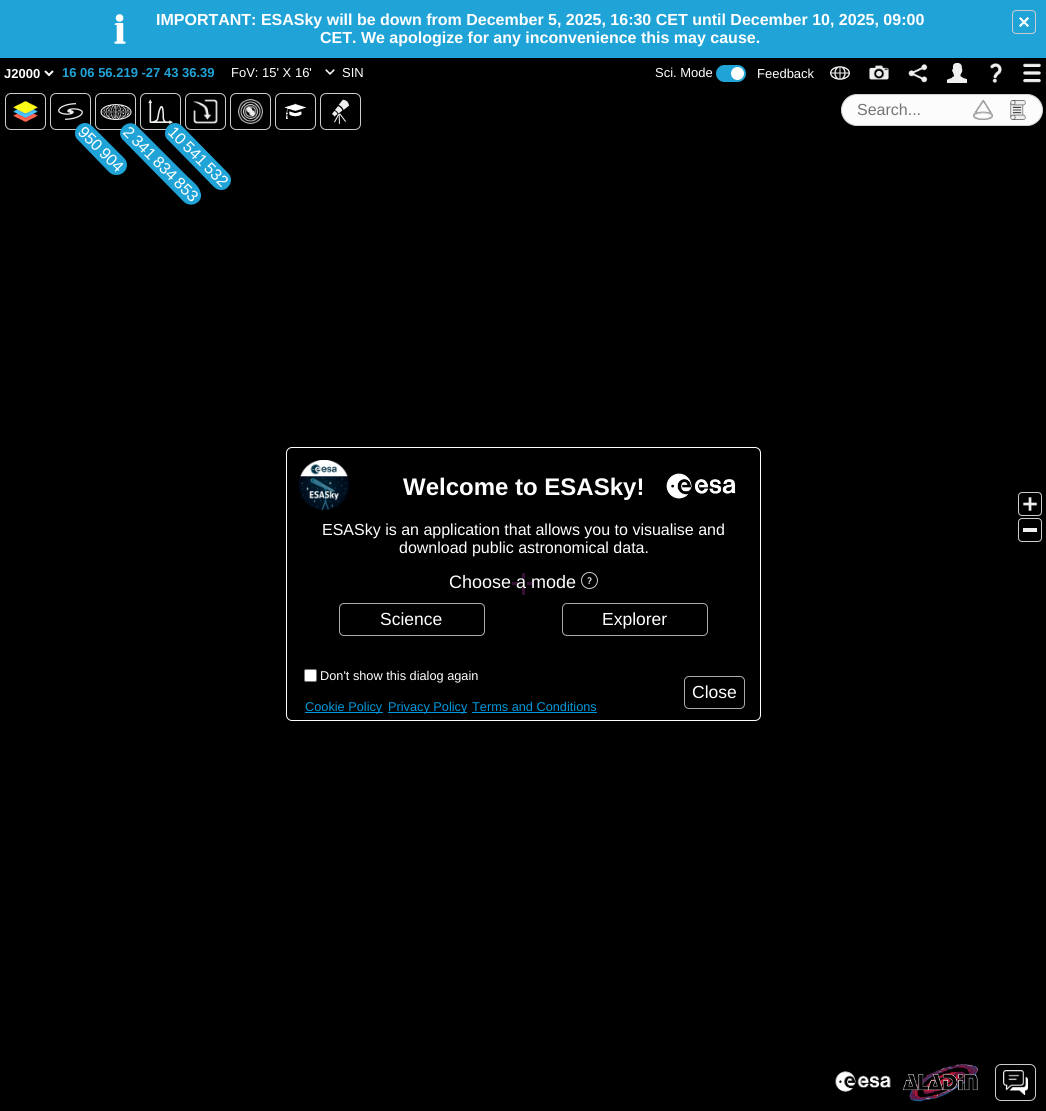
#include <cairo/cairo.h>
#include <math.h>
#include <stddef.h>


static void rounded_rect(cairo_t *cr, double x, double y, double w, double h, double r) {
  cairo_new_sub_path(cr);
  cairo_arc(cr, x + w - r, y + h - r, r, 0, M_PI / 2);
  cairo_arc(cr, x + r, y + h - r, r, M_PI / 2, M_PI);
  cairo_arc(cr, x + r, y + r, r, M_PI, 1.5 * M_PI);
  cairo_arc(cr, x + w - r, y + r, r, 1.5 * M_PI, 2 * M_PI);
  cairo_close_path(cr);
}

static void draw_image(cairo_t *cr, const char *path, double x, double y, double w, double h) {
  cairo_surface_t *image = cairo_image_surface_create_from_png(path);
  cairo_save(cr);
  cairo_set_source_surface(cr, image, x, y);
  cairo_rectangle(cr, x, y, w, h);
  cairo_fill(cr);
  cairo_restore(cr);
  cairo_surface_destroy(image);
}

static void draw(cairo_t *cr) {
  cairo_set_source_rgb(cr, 0, 0, 0);
  cairo_paint(cr);
  cairo_set_source_rgb(cr, 32 / 255.0, 164 / 255.0, 216 / 255.0);
  cairo_rectangle(cr, 0, 0, 1046, 58);
  cairo_fill(cr);
  draw_image(cr, "images/1.png", 114, 14, 12, 30);
  rounded_rect(cr, 1012.5, 10.5, 23, 23, 3.5);
  cairo_set_source_rgb(cr, 204 / 255.0, 204 / 255.0, 204 / 255.0);
  cairo_set_line_width(cr, 1);
  cairo_stroke(cr);
  draw_image(cr, "images/2.png", 1019, 17, 11, 11);
  cairo_new_path(cr);
  cairo_move_to(cr, 45, 71);
  cairo_line_to(cr, 49, 75);
  cairo_line_to(cr, 53, 71);
  cairo_set_source_rgb(cr, 1, 1, 1);
  cairo_set_line_width(cr, 2);
  cairo_stroke(cr);
  draw_image(cr, "images/3.png", 325, 69, 10, 6);
  cairo_set_source_rgb(cr, 32 / 255.0, 164 / 255.0, 216 / 255.0);
  rounded_rect(cr, 716, 65, 30, 17, 8.5);
  cairo_fill(cr);
  cairo_set_source_rgb(cr, 1, 1, 1);
  cairo_arc(cr, 737.5, 73.5, 6.5, 0, 2 * M_PI);
  cairo_fill(cr);
  draw_image(cr, "images/4.png", 830, 66, 20, 14);
  draw_image(cr, "images/5.png", 869, 65, 20, 15);
  draw_image(cr, "images/6.png", 908, 64, 20, 19);
  draw_image(cr, "images/7.png", 947, 63, 20, 20);
  draw_image(cr, "images/8.png", 990, 63, 12, 20);
  draw_image(cr, "images/9.png", 1023, 63, 18, 20);
  cairo_set_source_rgb(cr, 252 / 255.0, 252 / 255.0, 252 / 255.0);
  rounded_rect(cr, 841.5, 94.5, 201, 31, 15.5);
  cairo_fill_preserve(cr);
  cairo_set_source_rgb(cr, 209 / 255.0, 209 / 255.0, 209 / 255.0);
  cairo_set_line_width(cr, 1);
  cairo_stroke(cr);
  draw_image(cr, "images/10.png", 973, 100, 20, 20);
  draw_image(cr, "images/11.png", 1010, 100, 16, 20);
  rounded_rect(cr, 5.5, 93.5, 40, 36, 5.5);
  cairo_set_source_rgb(cr, 204 / 255.0, 204 / 255.0, 204 / 255.0);
  cairo_stroke(cr);
  draw_image(cr, "images/12.png", 13, 100, 25, 23);
  rounded_rect(cr, 185.5, 93.5, 40, 36, 5.5);
  cairo_stroke(cr);
  draw_image(cr, "images/13.png", 193, 99, 25, 25);
  rounded_rect(cr, 230.5, 93.5, 40, 36, 5.5);
  cairo_stroke(cr);
  draw_image(cr, "images/14.png", 238, 99, 25, 25);
  rounded_rect(cr, 275.5, 93.5, 40, 36, 5.5);
  cairo_stroke(cr);
  draw_image(cr, "images/15.png", 284, 103, 22, 16);
  rounded_rect(cr, 320.5, 93.5, 40, 36, 5.5);
  cairo_stroke(cr);
  draw_image(cr, "images/16.png", 332, 99, 17, 25);
  rounded_rect(cr, 50.5, 93.5, 40, 36, 5.5);
  cairo_stroke(cr);
  draw_image(cr, "images/17.png", 58, 103, 25, 17);
  cairo_set_source_rgb(cr, 32 / 255.0, 164 / 255.0, 216 / 255.0);
  cairo_new_path(cr);
  cairo_move_to(cr, 92, 126);
  cairo_line_to(cr, 124, 158);
  cairo_curve_to(cr, 128, 162, 128, 168, 124, 172);
  cairo_curve_to(cr, 120, 176, 113, 176, 109, 172);
  cairo_line_to(cr, 78, 140);
  cairo_curve_to(cr, 74, 137, 74, 130, 78, 126);
  cairo_curve_to(cr, 82, 122, 88, 122, 92, 126);
  cairo_close_path(cr);
  cairo_fill(cr);
  cairo_set_source_rgb(cr, 178 / 255.0, 50 / 255.0, 178 / 255.0);
  cairo_rectangle(cr, 522, 573, 3, 7);
  cairo_fill(cr);
  cairo_rectangle(cr, 512, 582, 7, 3);
  cairo_fill(cr);
  cairo_rectangle(cr, 527, 582, 7, 3);
  cairo_fill(cr);
  cairo_rectangle(cr, 522, 588, 3, 7);
  cairo_fill(cr);
  cairo_set_source_rgba(cr, 0, 0, 0, 0.7);
  rounded_rect(cr, 286.5, 447.5, 474, 273, 5.5);
  cairo_fill_preserve(cr);
  cairo_set_source_rgb(cr, 1, 1, 1);
  cairo_stroke(cr);
  draw_image(cr, "images/20.png", 299, 460, 50, 50);
  draw_image(cr, "images/21.png", 666, 473, 70, 26);
  cairo_arc(cr, 589.5, 580.5, 8, 0, 2 * M_PI);
  cairo_set_source_rgb(cr, 204 / 255.0, 204 / 255.0, 204 / 255.0);
  cairo_stroke(cr);
  draw_image(cr, "images/22.png", 587, 577, 5, 7);
  rounded_rect(cr, 339.5, 603.5, 145, 32, 4.5);
  cairo_set_source_rgb(cr, 170 / 255.0, 170 / 255.0, 170 / 255.0);
  cairo_stroke(cr);
  rounded_rect(cr, 562.5, 603.5, 145, 32, 4.5);
  cairo_stroke(cr);
  cairo_set_source_rgb(cr, 1, 1, 1);
  rounded_rect(cr, 304.5, 669.5, 12, 12, 1.5);
  cairo_fill_preserve(cr);
  cairo_set_source_rgb(cr, 118 / 255.0, 118 / 255.0, 118 / 255.0);
  cairo_stroke(cr);
  rounded_rect(cr, 684.5, 676.5, 60, 32, 4.5);
  cairo_set_source_rgb(cr, 170 / 255.0, 170 / 255.0, 170 / 255.0);
  cairo_stroke(cr);
  cairo_set_source_rgb(cr, 0, 152 / 255.0, 219 / 255.0);
  cairo_rectangle(cr, 305, 712, 78, 1);
  cairo_fill(cr);
  cairo_rectangle(cr, 388, 712, 79, 1);
  cairo_fill(cr);
  cairo_rectangle(cr, 472, 712, 125, 1);
  cairo_fill(cr);
  rounded_rect(cr, 1018.5, 492.5, 23, 23, 3.5);
  cairo_set_source_rgb(cr, 204 / 255.0, 204 / 255.0, 204 / 255.0);
  cairo_stroke(cr);
  draw_image(cr, "images/23.png", 1023, 497, 14, 14);
  rounded_rect(cr, 1018.5, 518.5, 23, 23, 3.5);
  cairo_stroke(cr);
  cairo_set_source_rgb(cr, 239 / 255.0, 239 / 255.0, 239 / 255.0);
  cairo_rectangle(cr, 1023, 528, 14, 4);
  cairo_fill(cr);
  draw_image(cr, "images/24.png", 903, 1064, 76, 38);
  rounded_rect(cr, 995.5, 1064.5, 40, 36, 5.5);
  cairo_set_source_rgb(cr, 204 / 255.0, 204 / 255.0, 204 / 255.0);
  cairo_stroke(cr);
  draw_image(cr, "images/25.png", 1003, 1070, 25, 25);
  draw_image(cr, "images/26.png", 835, 1071, 56, 21);
  cairo_select_font_face(cr, "Liberation Sans", CAIRO_FONT_SLANT_NORMAL, CAIRO_FONT_WEIGHT_BOLD);
  cairo_set_font_size(cr, 16);
  cairo_set_source_rgb(cr, 1, 1, 1);
  cairo_move_to(cr, 156, 25);
  cairo_show_text(cr, "IMPORTANT: ESASky will be down from December 5, 2025, 16:30 CET until December 10, 2025, 09:00");
  cairo_move_to(cr, 320, 43);
  cairo_show_text(cr, "CET. We apologize for any inconvenience this may cause.");
  cairo_set_font_size(cr, 13);
  cairo_move_to(cr, 4, 78);
  cairo_show_text(cr, "J2000");
  cairo_set_source_rgb(cr, 32 / 255.0, 164 / 255.0, 216 / 255.0);
  cairo_move_to(cr, 62, 77);
  cairo_show_text(cr, "16 06 56.219 -27 43 36.39");
  cairo_select_font_face(cr, "Liberation Sans", CAIRO_FONT_SLANT_NORMAL, CAIRO_FONT_WEIGHT_NORMAL);
  cairo_set_source_rgb(cr, 1, 1, 1);
  cairo_move_to(cr, 231, 77);
  cairo_show_text(cr, "FoV: 15' X 16'");
  cairo_move_to(cr, 342, 77);
  cairo_show_text(cr, "SIN");
  cairo_move_to(cr, 655, 77);
  cairo_show_text(cr, "Sci. Mode");
  cairo_move_to(cr, 757, 78);
  cairo_show_text(cr, "Feedback");
  cairo_set_font_size(cr, 16);
  cairo_set_source_rgb(cr, 117 / 255.0, 117 / 255.0, 117 / 255.0);
  cairo_move_to(cr, 857, 115);
  cairo_show_text(cr, "Search...");
  cairo_set_source_rgb(cr, 1, 1, 1);
  cairo_save(cr);
  cairo_translate(cr, 77, 133);
  cairo_rotate(cr, 45 * M_PI / 180);
  cairo_move_to(cr, 0, 0);
  cairo_show_text(cr, "950 904");
  cairo_restore(cr);
  rounded_rect(cr, 95.5, 93.5, 40, 36, 5.5);
  cairo_set_source_rgb(cr, 204 / 255.0, 204 / 255.0, 204 / 255.0);
  cairo_stroke(cr);
  draw_image(cr, "images/18.png", 100, 104, 32, 16);
  cairo_set_source_rgb(cr, 32 / 255.0, 164 / 255.0, 216 / 255.0);
  cairo_new_path(cr);
  cairo_move_to(cr, 137, 126);
  cairo_line_to(cr, 188, 177);
  cairo_curve_to(cr, 190, 179, 199, 186, 200, 191);
  cairo_curve_to(cr, 205, 201, 192, 209, 184, 202);
  cairo_line_to(cr, 122, 139);
  cairo_curve_to(cr, 115, 129, 129, 118, 137, 126);
  cairo_close_path(cr);
  cairo_fill(cr);
  cairo_set_source_rgb(cr, 1, 1, 1);
  cairo_save(cr);
  cairo_translate(cr, 122, 133);
  cairo_rotate(cr, 45 * M_PI / 180);
  cairo_move_to(cr, 0, 0);
  cairo_show_text(cr, "2 341 834 853");
  cairo_restore(cr);
  rounded_rect(cr, 140.5, 93.5, 40, 36, 5.5);
  cairo_set_source_rgb(cr, 204 / 255.0, 204 / 255.0, 204 / 255.0);
  cairo_stroke(cr);
  draw_image(cr, "images/19.png", 148, 99, 25, 25);
  cairo_set_source_rgb(cr, 32 / 255.0, 164 / 255.0, 216 / 255.0);
  cairo_new_path(cr);
  cairo_move_to(cr, 182, 126);
  cairo_line_to(cr, 228, 173);
  cairo_curve_to(cr, 232, 177, 232, 183, 228, 187);
  cairo_curve_to(cr, 225, 191, 218, 191, 214, 187);
  cairo_line_to(cr, 168, 140);
  cairo_curve_to(cr, 164, 137, 164, 130, 168, 126);
  cairo_curve_to(cr, 172, 122, 178, 122, 182, 126);
  cairo_close_path(cr);
  cairo_fill(cr);
  cairo_set_source_rgb(cr, 1, 1, 1);
  cairo_save(cr);
  cairo_translate(cr, 167, 133);
  cairo_rotate(cr, 45 * M_PI / 180);
  cairo_move_to(cr, 0, 0);
  cairo_show_text(cr, "10 541 532");
  cairo_restore(cr);
  cairo_select_font_face(cr, "Liberation Sans", CAIRO_FONT_SLANT_NORMAL, CAIRO_FONT_WEIGHT_BOLD);
  cairo_set_font_size(cr, 24);
  cairo_move_to(cr, 403, 495);
  cairo_show_text(cr, "Welcome to ESASky!");
  cairo_select_font_face(cr, "Liberation Sans", CAIRO_FONT_SLANT_NORMAL, CAIRO_FONT_WEIGHT_NORMAL);
  cairo_set_font_size(cr, 16);
  cairo_move_to(cr, 322, 535);
  cairo_show_text(cr, "ESASky is an application that allows you to visualise and");
  cairo_move_to(cr, 399, 553);
  cairo_show_text(cr, "download public astronomical data.");
  cairo_set_font_size(cr, 18);
  cairo_move_to(cr, 449, 588);
  cairo_show_text(cr, "Choose a mode");
  cairo_set_font_size(cr, 17.5);
  cairo_move_to(cr, 380, 625);
  cairo_show_text(cr, "Science");
  cairo_move_to(cr, 602, 625);
  cairo_show_text(cr, "Explorer");
  cairo_set_font_size(cr, 12.75);
  cairo_move_to(cr, 320, 680);
  cairo_show_text(cr, "Don't show this dialog again");
  cairo_set_font_size(cr, 17.5);
  cairo_move_to(cr, 692, 698);
  cairo_show_text(cr, "Close");
  cairo_set_font_size(cr, 12.75);
  cairo_set_source_rgb(cr, 0, 152 / 255.0, 219 / 255.0);
  cairo_move_to(cr, 305, 711);
  cairo_show_text(cr, "Cookie Policy");
  cairo_move_to(cr, 388, 711);
  cairo_show_text(cr, "Privacy Policy");
  cairo_move_to(cr, 472, 711);
  cairo_show_text(cr, "Terms and Conditions");
}

int main(void) {
  cairo_surface_t *surface = cairo_image_surface_create(CAIRO_FORMAT_RGB24, 1046, 1111);
  cairo_t *cr = cairo_create(surface);
  cairo_font_options_t *options = cairo_font_options_create();
  cairo_font_options_set_hint_metrics(options, CAIRO_HINT_METRICS_OFF);
  cairo_font_options_set_hint_style(options, CAIRO_HINT_STYLE_NONE);
  cairo_set_font_options(cr, options);
  cairo_set_miter_limit(cr, 4);
  draw(cr);
  cairo_surface_write_to_png(surface, "out.png");
  cairo_font_options_destroy(options);
  cairo_destroy(cr);
  cairo_surface_destroy(surface);
  return 0;
}
